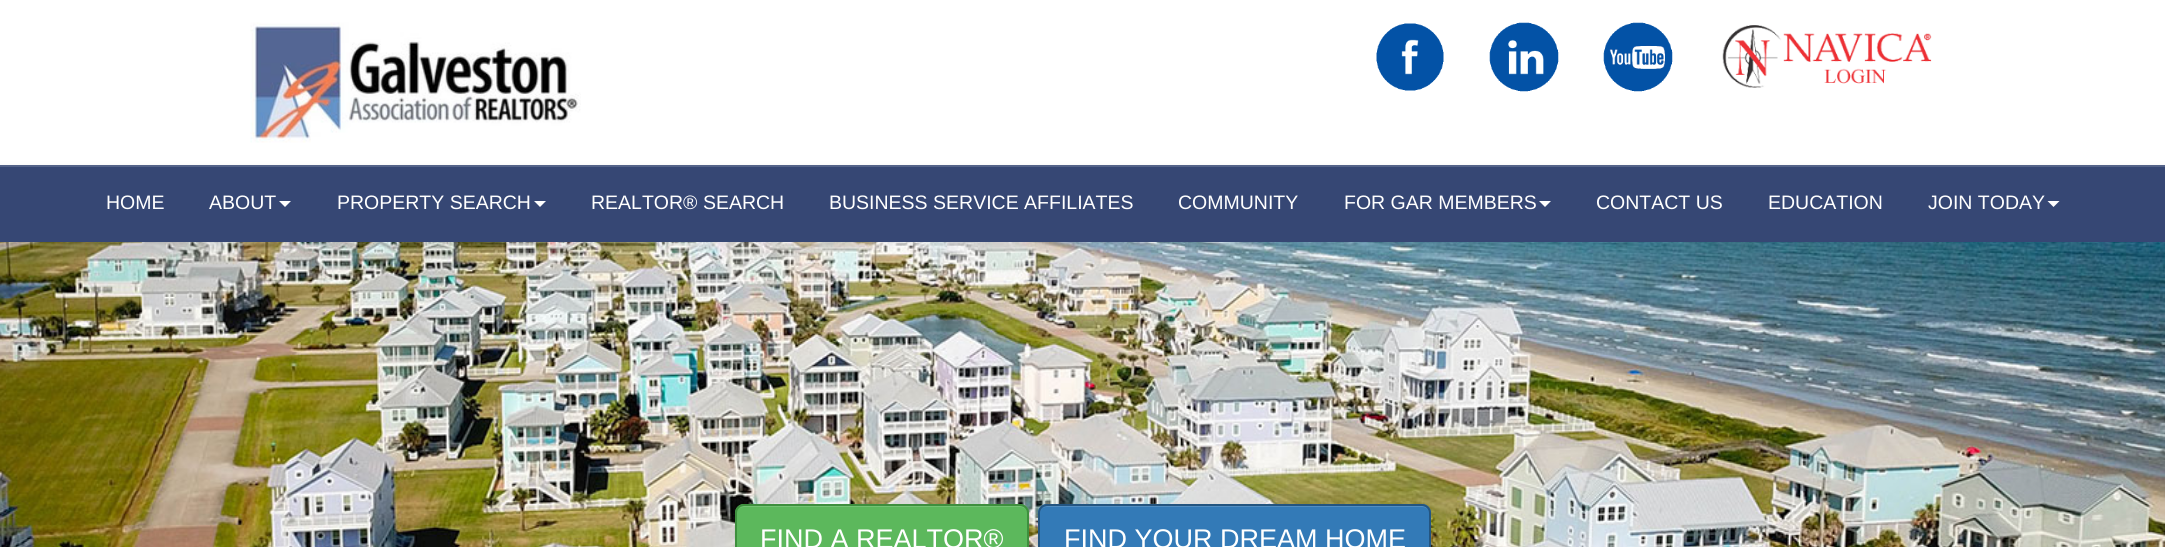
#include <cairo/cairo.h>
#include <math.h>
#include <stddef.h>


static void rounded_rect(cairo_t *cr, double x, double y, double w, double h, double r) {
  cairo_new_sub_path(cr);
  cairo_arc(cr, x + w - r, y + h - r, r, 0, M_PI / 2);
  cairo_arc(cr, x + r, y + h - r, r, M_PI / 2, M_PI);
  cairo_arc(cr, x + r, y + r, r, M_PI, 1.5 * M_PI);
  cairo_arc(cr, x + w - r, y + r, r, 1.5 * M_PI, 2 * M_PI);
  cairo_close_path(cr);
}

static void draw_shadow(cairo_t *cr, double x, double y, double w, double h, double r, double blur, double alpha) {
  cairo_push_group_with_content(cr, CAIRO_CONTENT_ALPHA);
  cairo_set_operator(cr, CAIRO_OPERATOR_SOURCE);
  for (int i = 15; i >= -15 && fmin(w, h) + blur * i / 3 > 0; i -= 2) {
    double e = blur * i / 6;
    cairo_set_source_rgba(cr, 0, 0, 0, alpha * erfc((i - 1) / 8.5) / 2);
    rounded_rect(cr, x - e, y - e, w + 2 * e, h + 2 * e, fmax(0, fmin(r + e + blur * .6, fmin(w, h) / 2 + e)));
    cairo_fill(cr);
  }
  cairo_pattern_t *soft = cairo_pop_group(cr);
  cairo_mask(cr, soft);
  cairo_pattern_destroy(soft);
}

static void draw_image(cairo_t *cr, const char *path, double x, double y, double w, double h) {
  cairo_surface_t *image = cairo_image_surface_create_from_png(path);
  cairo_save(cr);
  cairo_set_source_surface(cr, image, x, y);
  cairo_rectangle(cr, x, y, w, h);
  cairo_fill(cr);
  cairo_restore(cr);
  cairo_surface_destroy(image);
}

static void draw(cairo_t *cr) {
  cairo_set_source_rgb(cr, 1, 1, 1);
  cairo_paint(cr);
  draw_image(cr, "images/1.png", 250, 22, 331, 121);
  draw_image(cr, "images/2.png", 1376, 23, 68, 68);
  draw_image(cr, "images/3.png", 1489, 22, 70, 70);
  draw_image(cr, "images/4.png", 1603, 22, 70, 70);
  draw_image(cr, "images/5.png", 1722, 25, 210, 63);
  draw_image(cr, "images/6.png", 0, 242, 2165, 305);
  cairo_set_source_rgb(cr, 0, 0, 0);
  draw_shadow(cr, 0, 167, 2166, 76, 0, 4, 0.07);
  cairo_set_source_rgb(cr, 54 / 255.0, 71 / 255.0, 116 / 255.0);
  cairo_rectangle(cr, 0, 167, 2165, 75);
  cairo_fill(cr);
  cairo_set_source_rgb(cr, 84 / 255.0, 99 / 255.0, 137 / 255.0);
  cairo_rectangle(cr, 0, 165, 2165, 2);
  cairo_fill(cr);
  cairo_set_source_rgb(cr, 1, 1, 1);
  cairo_new_path(cr);
  cairo_move_to(cr, 279, 201);
  cairo_line_to(cr, 291, 201);
  cairo_line_to(cr, 285, 207);
  cairo_close_path(cr);
  cairo_fill(cr);
  cairo_new_path(cr);
  cairo_move_to(cr, 534, 201);
  cairo_line_to(cr, 546, 201);
  cairo_line_to(cr, 540, 207);
  cairo_close_path(cr);
  cairo_fill(cr);
  cairo_new_path(cr);
  cairo_move_to(cr, 1539, 201);
  cairo_line_to(cr, 1551, 201);
  cairo_line_to(cr, 1545, 207);
  cairo_close_path(cr);
  cairo_fill(cr);
  cairo_new_path(cr);
  cairo_move_to(cr, 2047.5, 201);
  cairo_line_to(cr, 2059.5, 201);
  cairo_line_to(cr, 2053.5, 207);
  cairo_close_path(cr);
  cairo_fill(cr);
  cairo_set_source_rgb(cr, 0, 0, 0);
  draw_shadow(cr, 735, 506, 294, 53, 9, 1, 0.07);
  cairo_set_source_rgb(cr, 92 / 255.0, 184 / 255.0, 92 / 255.0);
  rounded_rect(cr, 735, 504, 294, 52, 9);
  cairo_fill(cr);
  cairo_set_source_rgb(cr, 116 / 255.0, 195 / 255.0, 116 / 255.0);
  cairo_new_path(cr);
  cairo_move_to(cr, 744, 507);
  cairo_line_to(cr, 1020, 507);
  cairo_curve_to(cr, 1024, 507, 1028, 510, 1028, 514);
  cairo_curve_to(cr, 1028, 510, 1024, 506, 1020, 506);
  cairo_line_to(cr, 745, 506);
  cairo_curve_to(cr, 743, 506, 741, 507, 739, 508);
  cairo_curve_to(cr, 741, 508, 742, 507, 744, 507);
  cairo_close_path(cr);
  cairo_fill(cr);
  rounded_rect(cr, 736, 505, 292, 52, 8);
  cairo_set_source_rgb(cr, 62 / 255.0, 143 / 255.0, 62 / 255.0);
  cairo_stroke(cr);
  cairo_set_source_rgb(cr, 0, 0, 0);
  draw_shadow(cr, 1038, 506, 393, 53, 9, 1, 0.07);
  cairo_set_source_rgb(cr, 51 / 255.0, 122 / 255.0, 183 / 255.0);
  rounded_rect(cr, 1038, 504, 393, 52, 9);
  cairo_fill(cr);
  cairo_set_source_rgb(cr, 82 / 255.0, 142 / 255.0, 194 / 255.0);
  cairo_new_path(cr);
  cairo_move_to(cr, 1047, 507);
  cairo_line_to(cr, 1422, 507);
  cairo_curve_to(cr, 1426, 507, 1430, 510, 1430, 514);
  cairo_curve_to(cr, 1430, 510, 1426, 506, 1422, 506);
  cairo_line_to(cr, 1048, 506);
  cairo_curve_to(cr, 1044, 506, 1040, 510, 1040, 514);
  cairo_curve_to(cr, 1040, 510, 1043, 507, 1047, 507);
  cairo_close_path(cr);
  cairo_fill(cr);
  rounded_rect(cr, 1039, 505, 391, 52, 8);
  cairo_set_source_rgb(cr, 36 / 255.0, 85 / 255.0, 128 / 255.0);
  cairo_stroke(cr);
  cairo_select_font_face(cr, "Liberation Sans", CAIRO_FONT_SLANT_NORMAL, CAIRO_FONT_WEIGHT_NORMAL);
  cairo_set_font_size(cr, 19.5);
  cairo_set_source_rgb(cr, 1, 1, 1);
  cairo_move_to(cr, 106, 209);
  cairo_show_text(cr, "HOME");
  cairo_move_to(cr, 209, 209);
  cairo_show_text(cr, "ABOUT");
  cairo_move_to(cr, 337, 209);
  cairo_show_text(cr, "PROPERTY SEARCH");
  cairo_move_to(cr, 591, 209);
  cairo_show_text(cr, "REALTOR® SEARCH");
  cairo_move_to(cr, 829, 209);
  cairo_show_text(cr, "BUSINESS SERVICE AFFILIATES");
  cairo_move_to(cr, 1178, 209);
  cairo_show_text(cr, "COMMUNITY");
  cairo_move_to(cr, 1344, 209);
  cairo_show_text(cr, "FOR GAR MEMBERS");
  cairo_move_to(cr, 1596, 209);
  cairo_show_text(cr, "CONTACT US");
  cairo_move_to(cr, 1768, 209);
  cairo_show_text(cr, "EDUCATION");
  cairo_move_to(cr, 1928, 209);
  cairo_show_text(cr, "JOIN TODAY");
  cairo_set_font_size(cr, 27);
  cairo_move_to(cr, 760, 548);
  cairo_show_text(cr, "FIND A REALTOR®");
  cairo_move_to(cr, 1064, 548);
  cairo_show_text(cr, "FIND YOUR DREAM HOME");
}

int main(void) {
  cairo_surface_t *surface = cairo_image_surface_create(CAIRO_FORMAT_RGB24, 2165, 547);
  cairo_t *cr = cairo_create(surface);
  cairo_font_options_t *options = cairo_font_options_create();
  cairo_font_options_set_hint_metrics(options, CAIRO_HINT_METRICS_OFF);
  cairo_font_options_set_hint_style(options, CAIRO_HINT_STYLE_NONE);
  cairo_set_font_options(cr, options);
  cairo_set_miter_limit(cr, 4);
  draw(cr);
  cairo_surface_write_to_png(surface, "out.png");
  cairo_font_options_destroy(options);
  cairo_destroy(cr);
  cairo_surface_destroy(surface);
  return 0;
}
